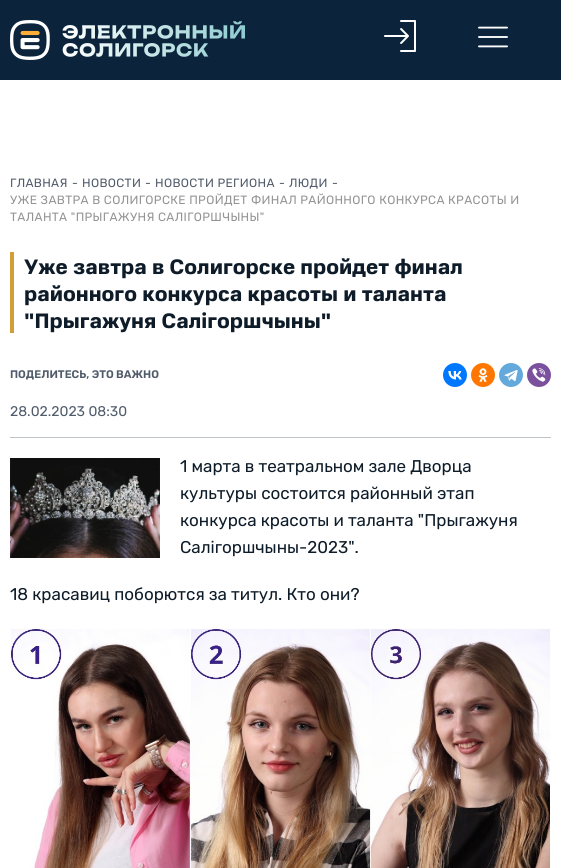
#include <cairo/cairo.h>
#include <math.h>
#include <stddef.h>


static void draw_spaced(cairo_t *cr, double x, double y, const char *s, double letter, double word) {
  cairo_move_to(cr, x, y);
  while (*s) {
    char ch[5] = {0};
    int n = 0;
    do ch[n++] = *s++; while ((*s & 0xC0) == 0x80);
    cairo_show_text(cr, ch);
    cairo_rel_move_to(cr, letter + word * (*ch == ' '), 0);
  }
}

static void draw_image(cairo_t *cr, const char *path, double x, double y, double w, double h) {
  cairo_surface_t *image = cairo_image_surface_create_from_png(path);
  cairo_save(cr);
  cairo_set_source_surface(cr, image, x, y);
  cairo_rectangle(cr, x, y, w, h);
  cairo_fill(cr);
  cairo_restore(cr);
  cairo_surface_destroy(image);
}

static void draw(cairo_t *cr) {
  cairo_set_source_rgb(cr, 1, 1, 1);
  cairo_paint(cr);
  cairo_set_source_rgb(cr, 11 / 255.0, 36 / 255.0, 60 / 255.0);
  cairo_rectangle(cr, 0, 0, 561, 80);
  cairo_fill(cr);
  draw_image(cr, "images/1.png", 10, 20, 235, 40);
  draw_image(cr, "images/2.png", 384, 20, 32, 32);
  draw_image(cr, "images/3.png", 478, 26, 30, 22);
  cairo_set_source_rgb(cr, 210 / 255.0, 159 / 255.0, 55 / 255.0);
  cairo_rectangle(cr, 10, 252, 4, 81);
  cairo_fill(cr);
  cairo_set_source_rgb(cr, 189 / 255.0, 195 / 255.0, 199 / 255.0);
  cairo_rectangle(cr, 10, 437, 541, 1);
  cairo_fill(cr);
  cairo_set_source_rgb(cr, 0, 119 / 255.0, 1);
  cairo_arc(cr, 455, 375, 12, 0, 2 * M_PI);
  cairo_fill(cr);
  draw_image(cr, "images/4.png", 448, 371, 14, 9);
  cairo_set_source_rgb(cr, 1, 119 / 255.0, 0);
  cairo_arc(cr, 483, 375, 12, 0, 2 * M_PI);
  cairo_fill(cr);
  draw_image(cr, "images/5.png", 478, 368, 10, 14);
  cairo_set_source_rgb(cr, 100 / 255.0, 169 / 255.0, 220 / 255.0);
  cairo_arc(cr, 511, 375, 12, 0, 2 * M_PI);
  cairo_fill(cr);
  draw_image(cr, "images/6.png", 504, 370, 14, 12);
  cairo_set_source_rgb(cr, 123 / 255.0, 81 / 255.0, 157 / 255.0);
  cairo_arc(cr, 539, 375, 12, 0, 2 * M_PI);
  cairo_fill(cr);
  draw_image(cr, "images/7.png", 532, 368, 14, 14);
  draw_image(cr, "images/8.png", 10, 458, 150, 100);
  draw_image(cr, "images/9.png", 10, 628, 541, 240);
  cairo_select_font_face(cr, "Rubik", CAIRO_FONT_SLANT_NORMAL, CAIRO_FONT_WEIGHT_NORMAL);
  cairo_set_font_size(cr, 12);
  cairo_set_source_rgb(cr, 81 / 255.0, 92 / 255.0, 107 / 255.0);
  draw_spaced(cr, 10, 187, "ГЛАВНАЯ", 0.35, 0);
  draw_spaced(cr, 72, 187, "-", 0.35, 0);
  draw_spaced(cr, 82, 187, "НОВОСТИ", 0.35, 0);
  draw_spaced(cr, 145, 187, "-", 0.35, 0);
  draw_spaced(cr, 155, 187, "НОВОСТИ РЕГИОНА", 0.35, 0);
  draw_spaced(cr, 279, 187, "-", 0.35, 0);
  draw_spaced(cr, 289, 187, "ЛЮДИ", 0.35, 0);
  draw_spaced(cr, 332, 187, "-", 0.35, 0);
  cairo_set_source_rgb(cr, 148 / 255.0, 148 / 255.0, 148 / 255.0);
  draw_spaced(cr, 10, 204, "УЖЕ ЗАВТРА В СОЛИГОРСКЕ ПРОЙДЕТ ФИНАЛ РАЙОННОГО КОНКУРСА КРАСОТЫ И", 0.35, 0);
  draw_spaced(cr, 10, 221, "ТАЛАНТА \"ПРЫГАЖУНЯ САЛIГОРШЧЫНЫ\"", 0.35, 0);
  cairo_select_font_face(cr, "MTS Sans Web", CAIRO_FONT_SLANT_NORMAL, CAIRO_FONT_WEIGHT_BOLD);
  cairo_set_font_size(cr, 21);
  cairo_set_source_rgb(cr, 14 / 255.0, 28 / 255.0, 41 / 255.0);
  cairo_move_to(cr, 24, 274);
  cairo_show_text(cr, "Уже завтра в Солигорске пройдет финал");
  cairo_move_to(cr, 24, 301);
  cairo_show_text(cr, "районного конкурса красоты и таланта");
  cairo_move_to(cr, 24, 328);
  cairo_show_text(cr, "\"Прыгажуня Салiгоршчыны\"");
  cairo_select_font_face(cr, "Rubik SemiBold", CAIRO_FONT_SLANT_NORMAL, CAIRO_FONT_WEIGHT_NORMAL);
  cairo_set_font_size(cr, 11);
  cairo_set_source_rgb(cr, 81 / 255.0, 92 / 255.0, 107 / 255.0);
  cairo_move_to(cr, 10, 378);
  cairo_show_text(cr, "ПОДЕЛИТЕСЬ, ЭТО ВАЖНО");
  cairo_select_font_face(cr, "Rubik", CAIRO_FONT_SLANT_NORMAL, CAIRO_FONT_WEIGHT_NORMAL);
  cairo_set_font_size(cr, 14);
  cairo_move_to(cr, 10, 416);
  cairo_show_text(cr, "28.02.2023 08:30");
  cairo_set_font_size(cr, 17);
  cairo_set_source_rgb(cr, 14 / 255.0, 28 / 255.0, 41 / 255.0);
  cairo_move_to(cr, 180, 472);
  cairo_show_text(cr, "1 марта в театральном зале Дворца");
  cairo_move_to(cr, 180, 499);
  cairo_show_text(cr, "культуры состоится районный этап");
  cairo_move_to(cr, 180, 526);
  cairo_show_text(cr, "конкурса красоты и таланта \"Прыгажуня");
  cairo_move_to(cr, 180, 553);
  cairo_show_text(cr, "Салiгоршчыны-2023\".");
  cairo_move_to(cr, 10, 600);
  cairo_show_text(cr, "18 красавиц поборются за титул. Кто они?");
}

int main(void) {
  cairo_surface_t *surface = cairo_image_surface_create(CAIRO_FORMAT_RGB24, 561, 868);
  cairo_t *cr = cairo_create(surface);
  cairo_font_options_t *options = cairo_font_options_create();
  cairo_font_options_set_hint_metrics(options, CAIRO_HINT_METRICS_OFF);
  cairo_font_options_set_hint_style(options, CAIRO_HINT_STYLE_NONE);
  cairo_set_font_options(cr, options);
  cairo_set_miter_limit(cr, 4);
  draw(cr);
  cairo_surface_write_to_png(surface, "out.png");
  cairo_font_options_destroy(options);
  cairo_destroy(cr);
  cairo_surface_destroy(surface);
  return 0;
}
